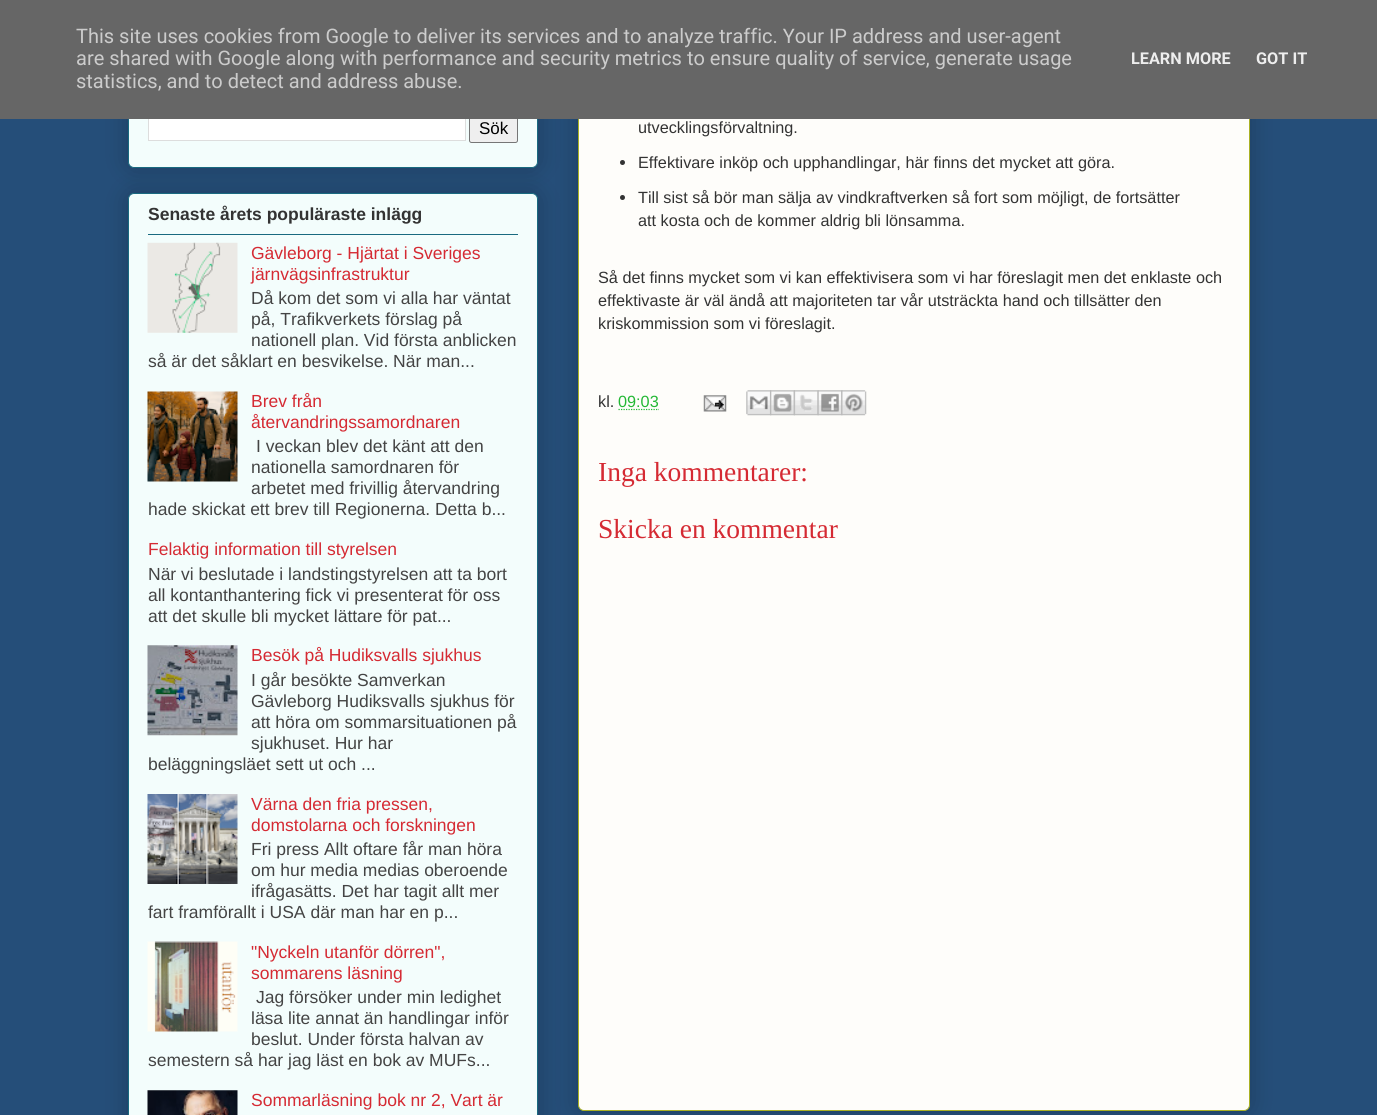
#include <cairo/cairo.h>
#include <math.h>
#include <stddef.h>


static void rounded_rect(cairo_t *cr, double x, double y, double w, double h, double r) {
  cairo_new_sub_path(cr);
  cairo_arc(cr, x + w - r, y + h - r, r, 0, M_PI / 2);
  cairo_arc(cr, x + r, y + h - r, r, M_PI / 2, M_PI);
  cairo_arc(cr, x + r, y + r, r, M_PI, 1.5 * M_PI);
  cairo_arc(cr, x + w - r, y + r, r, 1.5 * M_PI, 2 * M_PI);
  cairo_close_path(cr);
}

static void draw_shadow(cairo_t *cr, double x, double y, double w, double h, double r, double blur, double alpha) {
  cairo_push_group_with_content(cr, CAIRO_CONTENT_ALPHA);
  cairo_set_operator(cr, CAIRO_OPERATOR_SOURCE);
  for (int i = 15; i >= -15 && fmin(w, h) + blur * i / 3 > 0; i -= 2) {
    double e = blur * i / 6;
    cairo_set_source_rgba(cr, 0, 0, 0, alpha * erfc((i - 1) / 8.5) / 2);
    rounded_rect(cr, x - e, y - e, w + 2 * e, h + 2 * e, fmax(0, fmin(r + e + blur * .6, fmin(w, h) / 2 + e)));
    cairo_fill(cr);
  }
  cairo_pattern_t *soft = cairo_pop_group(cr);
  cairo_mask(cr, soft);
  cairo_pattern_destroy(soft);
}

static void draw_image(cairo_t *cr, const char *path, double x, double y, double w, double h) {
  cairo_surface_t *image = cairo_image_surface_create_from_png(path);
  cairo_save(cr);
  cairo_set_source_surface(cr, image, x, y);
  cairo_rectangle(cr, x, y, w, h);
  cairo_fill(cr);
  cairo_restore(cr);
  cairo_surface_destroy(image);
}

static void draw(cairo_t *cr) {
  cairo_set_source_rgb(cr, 37 / 255.0, 78 / 255.0, 121 / 255.0);
  cairo_paint(cr);
  cairo_set_source_rgb(cr, 0, 0, 0);
  draw_shadow(cr, 128, 64, 410, 104, 6, 12.5, 0.2);
  cairo_set_source_rgb(cr, 243 / 255.0, 253 / 255.0, 252 / 255.0);
  rounded_rect(cr, 128.5, 64.5, 409, 103, 5.5);
  cairo_fill_preserve(cr);
  cairo_set_source_rgb(cr, 25 / 255.0, 106 / 255.0, 128 / 255.0);
  cairo_set_line_width(cr, 1);
  cairo_stroke(cr);
  cairo_set_source_rgb(cr, 1, 1, 1);
  cairo_rectangle(cr, 148.5, 118.5, 317, 22);
  cairo_fill_preserve(cr);
  cairo_set_source_rgb(cr, 221 / 255.0, 221 / 255.0, 221 / 255.0);
  cairo_stroke(cr);
  cairo_set_source_rgb(cr, 239 / 255.0, 239 / 255.0, 239 / 255.0);
  rounded_rect(cr, 469.5, 116.5, 48, 26, 2);
  cairo_fill_preserve(cr);
  cairo_set_source_rgb(cr, 118 / 255.0, 118 / 255.0, 118 / 255.0);
  cairo_stroke(cr);
  cairo_set_source_rgb(cr, 0, 0, 0);
  draw_shadow(cr, 578, -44, 672, 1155, 6, 12.5, 0.2);
  cairo_set_source_rgb(cr, 254 / 255.0, 253 / 255.0, 250 / 255.0);
  rounded_rect(cr, 578.5, -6.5, 671, 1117, 5.5);
  cairo_fill_preserve(cr);
  cairo_set_source_rgb(cr, 170 / 255.0, 177 / 255.0, 35 / 255.0);
  cairo_stroke(cr);
  cairo_set_source_rgb(cr, 102 / 255.0, 102 / 255.0, 102 / 255.0);
  cairo_rectangle(cr, 0, 0, 1377, 119);
  cairo_fill(cr);
  cairo_set_source_rgb(cr, 0, 0, 0);
  draw_shadow(cr, 128, 193, 410, 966, 6, 12.5, 0.2);
  cairo_set_source_rgb(cr, 243 / 255.0, 253 / 255.0, 252 / 255.0);
  rounded_rect(cr, 128.5, 193.5, 409, 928, 5.5);
  cairo_fill_preserve(cr);
  cairo_set_source_rgb(cr, 25 / 255.0, 106 / 255.0, 128 / 255.0);
  cairo_stroke(cr);
  cairo_rectangle(cr, 148, 234, 370, 1);
  cairo_fill(cr);
  draw_image(cr, "images/1.png", 147, 242, 91, 91);
  draw_image(cr, "images/2.png", 147, 391, 91, 91);
  draw_image(cr, "images/3.png", 147, 645, 91, 91);
  draw_image(cr, "images/4.png", 147, 794, 91, 90);
  draw_image(cr, "images/5.png", 147, 941, 91, 91);
  draw_image(cr, "images/6.png", 147, 1090, 91, 25);
  cairo_set_source_rgb(cr, 51 / 255.0, 51 / 255.0, 51 / 255.0);
  cairo_arc(cr, 622.5, 162.5, 2.5, 0, 2 * M_PI);
  cairo_fill(cr);
  cairo_arc(cr, 622.5, 197.5, 2.5, 0, 2 * M_PI);
  cairo_fill(cr);
  cairo_new_path(cr);
  cairo_move_to(cr, 618.5, 409.5);
  cairo_line_to(cr, 659, 409.5);
  cairo_set_source_rgb(cr, 36 / 255.0, 184 / 255.0, 53 / 255.0);
  cairo_set_line_width(cr, 1.2);
  cairo_set_dash(cr, (double[]){1.25, 1.25}, 2, 0);
  cairo_stroke(cr);
  draw_image(cr, "images/7.png", 703, 395, 24, 17);
  draw_image(cr, "images/8.png", 746, 390, 26, 26);
  draw_image(cr, "images/9.png", 770, 390, 25, 26);
  draw_image(cr, "images/10.png", 793, 390, 26, 26);
  draw_image(cr, "images/11.png", 817, 390, 26, 26);
  draw_image(cr, "images/12.png", 841, 390, 26, 26);
  cairo_select_font_face(cr, "Roboto", CAIRO_FONT_SLANT_NORMAL, CAIRO_FONT_WEIGHT_NORMAL);
  cairo_set_font_size(cr, 20);
  cairo_set_source_rgb(cr, 204 / 255.0, 204 / 255.0, 204 / 255.0);
  cairo_move_to(cr, 76, 43);
  cairo_show_text(cr, "This site uses cookies from Google to deliver its services and to analyze traffic. Your IP address and user-agent");
  cairo_move_to(cr, 76, 65);
  cairo_show_text(cr, "are shared with Google along with performance and security metrics to ensure quality of service, generate usage");
  cairo_move_to(cr, 76, 88);
  cairo_show_text(cr, "statistics, and to detect and address abuse.");
  cairo_select_font_face(cr, "Roboto", CAIRO_FONT_SLANT_NORMAL, CAIRO_FONT_WEIGHT_BOLD);
  cairo_set_font_size(cr, 16.25);
  cairo_set_source_rgb(cr, 238 / 255.0, 238 / 255.0, 238 / 255.0);
  cairo_move_to(cr, 1131, 64);
  cairo_show_text(cr, "LEARN MORE");
  cairo_move_to(cr, 1256, 64);
  cairo_show_text(cr, "GOT IT");
  cairo_select_font_face(cr, "Liberation Sans", CAIRO_FONT_SLANT_NORMAL, CAIRO_FONT_WEIGHT_NORMAL);
  cairo_set_font_size(cr, 17);
  cairo_set_source_rgb(cr, 0, 0, 0);
  cairo_move_to(cr, 479, 134);
  cairo_show_text(cr, "Sök");
  cairo_select_font_face(cr, "Liberation Sans", CAIRO_FONT_SLANT_NORMAL, CAIRO_FONT_WEIGHT_BOLD);
  cairo_set_font_size(cr, 17.5);
  cairo_set_source_rgb(cr, 51 / 255.0, 51 / 255.0, 51 / 255.0);
  cairo_move_to(cr, 148, 220);
  cairo_show_text(cr, "Senaste årets populäraste inlägg");
  cairo_select_font_face(cr, "Liberation Sans", CAIRO_FONT_SLANT_NORMAL, CAIRO_FONT_WEIGHT_NORMAL);
  cairo_set_source_rgb(cr, 213 / 255.0, 42 / 255.0, 51 / 255.0);
  cairo_move_to(cr, 251, 259);
  cairo_show_text(cr, "Gävleborg - Hjärtat i Sveriges");
  cairo_move_to(cr, 251, 280);
  cairo_show_text(cr, "järnvägsinfrastruktur");
  cairo_set_source_rgb(cr, 68 / 255.0, 68 / 255.0, 68 / 255.0);
  cairo_move_to(cr, 251, 304);
  cairo_show_text(cr, "Då kom det som vi alla har väntat");
  cairo_move_to(cr, 251, 325);
  cairo_show_text(cr, "på, Trafikverkets förslag på");
  cairo_move_to(cr, 251, 346);
  cairo_show_text(cr, "nationell plan. Vid första anblicken");
  cairo_move_to(cr, 148, 367);
  cairo_show_text(cr, "så är det såklart en besvikelse. När man...");
  cairo_set_source_rgb(cr, 213 / 255.0, 42 / 255.0, 51 / 255.0);
  cairo_move_to(cr, 251, 407);
  cairo_show_text(cr, "Brev från");
  cairo_move_to(cr, 251, 428);
  cairo_show_text(cr, "återvandringssamordnaren");
  cairo_set_source_rgb(cr, 68 / 255.0, 68 / 255.0, 68 / 255.0);
  cairo_move_to(cr, 256, 452);
  cairo_show_text(cr, "I veckan blev det känt att den");
  cairo_move_to(cr, 251, 473);
  cairo_show_text(cr, "nationella samordnaren för");
  cairo_move_to(cr, 251, 494);
  cairo_show_text(cr, "arbetet med frivillig återvandring");
  cairo_move_to(cr, 148, 515);
  cairo_show_text(cr, "hade skickat ett brev till Regionerna. Detta b...");
  cairo_set_source_rgb(cr, 213 / 255.0, 42 / 255.0, 51 / 255.0);
  cairo_move_to(cr, 148, 555);
  cairo_show_text(cr, "Felaktig information till styrelsen");
  cairo_set_source_rgb(cr, 68 / 255.0, 68 / 255.0, 68 / 255.0);
  cairo_move_to(cr, 148, 580);
  cairo_show_text(cr, "När vi beslutade i landstingstyrelsen att ta bort");
  cairo_move_to(cr, 148, 601);
  cairo_show_text(cr, "all kontanthantering fick vi presenterat för oss");
  cairo_move_to(cr, 148, 622);
  cairo_show_text(cr, "att det skulle bli mycket lättare för pat...");
  cairo_set_source_rgb(cr, 213 / 255.0, 42 / 255.0, 51 / 255.0);
  cairo_move_to(cr, 251, 661);
  cairo_show_text(cr, "Besök på Hudiksvalls sjukhus");
  cairo_set_source_rgb(cr, 68 / 255.0, 68 / 255.0, 68 / 255.0);
  cairo_move_to(cr, 251, 686);
  cairo_show_text(cr, "I går besökte Samverkan");
  cairo_move_to(cr, 251, 707);
  cairo_show_text(cr, "Gävleborg Hudiksvalls sjukhus för");
  cairo_move_to(cr, 251, 728);
  cairo_show_text(cr, "att höra om sommarsituationen på");
  cairo_move_to(cr, 251, 749);
  cairo_show_text(cr, "sjukhuset. Hur har");
  cairo_move_to(cr, 148, 770);
  cairo_show_text(cr, "beläggningsläet sett ut och ...");
  cairo_set_source_rgb(cr, 213 / 255.0, 42 / 255.0, 51 / 255.0);
  cairo_move_to(cr, 251, 810);
  cairo_show_text(cr, "Värna den fria pressen,");
  cairo_move_to(cr, 251, 831);
  cairo_show_text(cr, "domstolarna och forskningen");
  cairo_set_source_rgb(cr, 68 / 255.0, 68 / 255.0, 68 / 255.0);
  cairo_move_to(cr, 251, 855);
  cairo_show_text(cr, "Fri press Allt oftare får man höra");
  cairo_move_to(cr, 251, 876);
  cairo_show_text(cr, "om hur media medias oberoende");
  cairo_move_to(cr, 251, 897);
  cairo_show_text(cr, "ifrågasätts. Det har tagit allt mer");
  cairo_move_to(cr, 148, 918);
  cairo_show_text(cr, "fart framförallt i USA där man har en p...");
  cairo_set_source_rgb(cr, 213 / 255.0, 42 / 255.0, 51 / 255.0);
  cairo_move_to(cr, 251, 958);
  cairo_show_text(cr, "\"Nyckeln utanför dörren\",");
  cairo_move_to(cr, 251, 979);
  cairo_show_text(cr, "sommarens läsning");
  cairo_set_source_rgb(cr, 68 / 255.0, 68 / 255.0, 68 / 255.0);
  cairo_move_to(cr, 256, 1003);
  cairo_show_text(cr, "Jag försöker under min ledighet");
  cairo_move_to(cr, 251, 1024);
  cairo_show_text(cr, "läsa lite annat än handlingar inför");
  cairo_move_to(cr, 251, 1045);
  cairo_show_text(cr, "beslut. Under första halvan av");
  cairo_move_to(cr, 148, 1066);
  cairo_show_text(cr, "semestern så har jag läst en bok av MUFs...");
  cairo_set_source_rgb(cr, 213 / 255.0, 42 / 255.0, 51 / 255.0);
  cairo_move_to(cr, 251, 1106);
  cairo_show_text(cr, "Sommarläsning bok nr 2, Vart är");
  cairo_set_font_size(cr, 16.25);
  cairo_set_source_rgb(cr, 51 / 255.0, 51 / 255.0, 51 / 255.0);
  cairo_move_to(cr, 638, 133);
  cairo_show_text(cr, "utvecklingsförvaltning.");
  cairo_move_to(cr, 638, 168);
  cairo_show_text(cr, "Effektivare inköp och upphandlingar, här finns det mycket att göra.");
  cairo_move_to(cr, 638, 203);
  cairo_show_text(cr, "Till sist så bör man sälja av vindkraftverken så fort som möjligt, de fortsätter");
  cairo_move_to(cr, 638, 226);
  cairo_show_text(cr, "att kosta och de kommer aldrig bli lönsamma.");
  cairo_move_to(cr, 598, 283);
  cairo_show_text(cr, "Så det finns mycket som vi kan effektivisera som vi har föreslagit men det enklaste och");
  cairo_move_to(cr, 598, 306);
  cairo_show_text(cr, "effektivaste är väl ändå att majoriteten tar vår utsträckta hand och tillsätter den");
  cairo_move_to(cr, 598, 329);
  cairo_show_text(cr, "kriskommission som vi föreslagit.");
  cairo_move_to(cr, 598, 407);
  cairo_show_text(cr, "kl.");
  cairo_set_source_rgb(cr, 36 / 255.0, 184 / 255.0, 53 / 255.0);
  cairo_move_to(cr, 618, 407);
  cairo_show_text(cr, "09:03");
  cairo_select_font_face(cr, "Liberation Serif", CAIRO_FONT_SLANT_NORMAL, CAIRO_FONT_WEIGHT_NORMAL);
  cairo_set_font_size(cr, 27.5);
  cairo_set_source_rgb(cr, 213 / 255.0, 42 / 255.0, 51 / 255.0);
  cairo_move_to(cr, 598, 481);
  cairo_show_text(cr, "Inga kommentarer:");
  cairo_move_to(cr, 598, 538);
  cairo_show_text(cr, "Skicka en kommentar");
}

int main(void) {
  cairo_surface_t *surface = cairo_image_surface_create(CAIRO_FORMAT_RGB24, 1377, 1115);
  cairo_t *cr = cairo_create(surface);
  cairo_font_options_t *options = cairo_font_options_create();
  cairo_font_options_set_hint_metrics(options, CAIRO_HINT_METRICS_OFF);
  cairo_font_options_set_hint_style(options, CAIRO_HINT_STYLE_NONE);
  cairo_set_font_options(cr, options);
  cairo_set_miter_limit(cr, 4);
  draw(cr);
  cairo_surface_write_to_png(surface, "out.png");
  cairo_font_options_destroy(options);
  cairo_destroy(cr);
  cairo_surface_destroy(surface);
  return 0;
}
